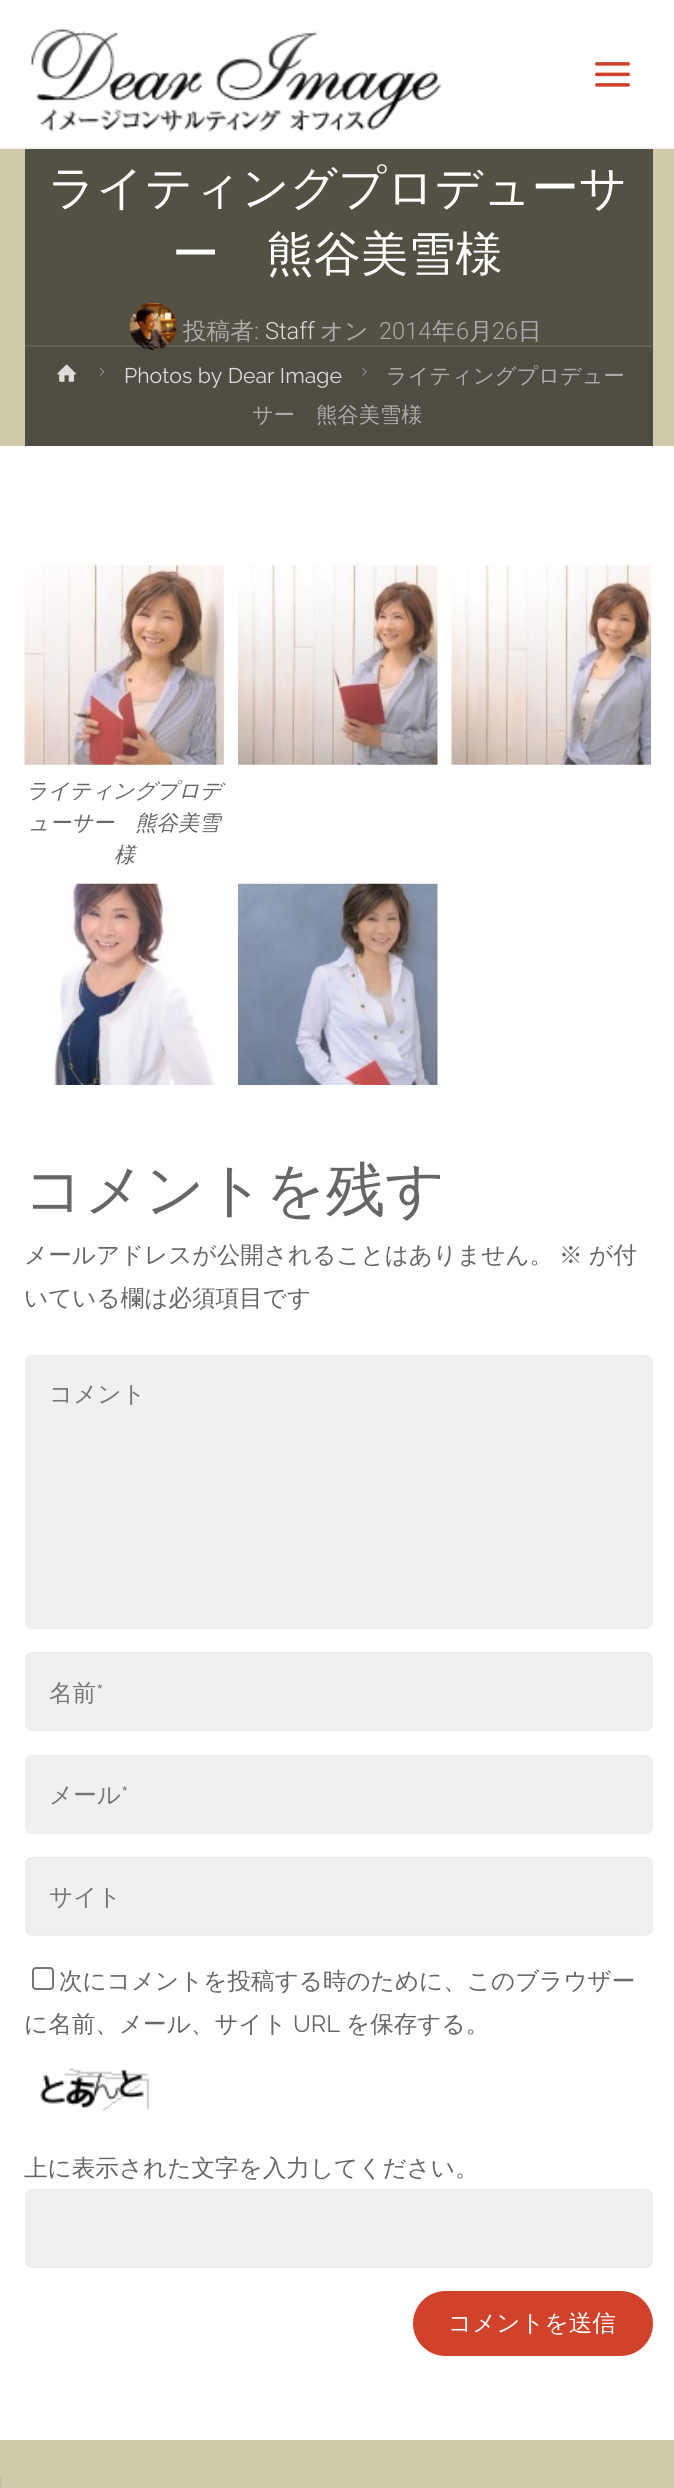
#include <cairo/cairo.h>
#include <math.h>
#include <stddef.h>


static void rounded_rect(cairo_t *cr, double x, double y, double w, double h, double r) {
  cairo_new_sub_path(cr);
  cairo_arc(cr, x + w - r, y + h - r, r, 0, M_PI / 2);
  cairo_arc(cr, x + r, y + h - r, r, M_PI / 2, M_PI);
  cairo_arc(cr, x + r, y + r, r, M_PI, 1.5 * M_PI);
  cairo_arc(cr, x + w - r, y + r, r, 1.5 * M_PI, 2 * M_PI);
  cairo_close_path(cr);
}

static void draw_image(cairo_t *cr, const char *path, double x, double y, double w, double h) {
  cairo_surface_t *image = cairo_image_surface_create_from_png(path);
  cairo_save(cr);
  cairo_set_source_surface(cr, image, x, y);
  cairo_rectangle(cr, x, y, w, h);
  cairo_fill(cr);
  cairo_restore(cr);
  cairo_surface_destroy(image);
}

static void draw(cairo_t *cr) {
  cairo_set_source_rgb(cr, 207 / 255.0, 202 / 255.0, 170 / 255.0);
  cairo_paint(cr);
  cairo_set_source_rgb(cr, 1, 1, 1);
  cairo_rectangle(cr, 0, 0, 674, 147);
  cairo_fill(cr);
  cairo_set_source_rgb(cr, 242 / 255.0, 242 / 255.0, 242 / 255.0);
  cairo_rectangle(cr, 0, 147, 674, 2);
  cairo_fill(cr);
  draw_image(cr, "images/1.png", 29, 29, 413, 103);
  draw_image(cr, "images/2.png", 595, 62, 35, 25);
  cairo_set_source_rgb(cr, 83 / 255.0, 81 / 255.0, 68 / 255.0);
  cairo_rectangle(cr, 25, 149, 628, 297);
  cairo_fill(cr);
  draw_image(cr, "images/3.png", 129, 302, 48, 48);
  cairo_set_source_rgba(cr, 0, 0, 0, 0.05);
  cairo_rectangle(cr, 25, 345, 628, 101);
  cairo_fill(cr);
  cairo_set_source_rgba(cr, 1, 1, 1, 0.1);
  cairo_rectangle(cr, 25, 345, 628, 2);
  cairo_fill(cr);
  draw_image(cr, "images/4.png", 57, 364, 20, 18);
  draw_image(cr, "images/5.png", 99, 367, 6, 9);
  draw_image(cr, "images/6.png", 362, 367, 5, 9);
  cairo_set_source_rgb(cr, 1, 1, 1);
  cairo_rectangle(cr, 0, 446, 674, 1994);
  cairo_fill(cr);
  draw_image(cr, "images/7.png", 238, 565, 200, 200);
  draw_image(cr, "images/8.png", 451, 565, 200, 200);
  draw_image(cr, "images/9.png", 24, 565, 200, 200);
  draw_image(cr, "images/10.png", 50, 883, 165, 202);
  draw_image(cr, "images/11.png", 238, 883, 200, 202);
  cairo_set_source_rgb(cr, 240 / 255.0, 240 / 255.0, 240 / 255.0);
  rounded_rect(cr, 26, 1356, 626, 272, 6);
  cairo_fill_preserve(cr);
  cairo_set_source_rgb(cr, 238 / 255.0, 238 / 255.0, 238 / 255.0);
  cairo_stroke(cr);
  cairo_set_source_rgb(cr, 240 / 255.0, 240 / 255.0, 240 / 255.0);
  rounded_rect(cr, 26, 1653, 626, 77, 6);
  cairo_fill_preserve(cr);
  cairo_set_source_rgb(cr, 238 / 255.0, 238 / 255.0, 238 / 255.0);
  cairo_stroke(cr);
  cairo_set_source_rgb(cr, 240 / 255.0, 240 / 255.0, 240 / 255.0);
  rounded_rect(cr, 26, 1756, 626, 77, 6);
  cairo_fill_preserve(cr);
  cairo_set_source_rgb(cr, 238 / 255.0, 238 / 255.0, 238 / 255.0);
  cairo_stroke(cr);
  cairo_set_source_rgb(cr, 240 / 255.0, 240 / 255.0, 240 / 255.0);
  rounded_rect(cr, 26, 1858, 626, 77, 6);
  cairo_fill_preserve(cr);
  cairo_set_source_rgb(cr, 238 / 255.0, 238 / 255.0, 238 / 255.0);
  cairo_stroke(cr);
  rounded_rect(cr, 33, 1968, 20, 21, 3);
  cairo_set_source_rgb(cr, 118 / 255.0, 118 / 255.0, 118 / 255.0);
  cairo_stroke(cr);
  draw_image(cr, "images/12.png", 39, 2068, 111, 43);
  cairo_set_source_rgb(cr, 240 / 255.0, 240 / 255.0, 240 / 255.0);
  rounded_rect(cr, 26, 2190, 626, 77, 6);
  cairo_fill_preserve(cr);
  cairo_set_source_rgb(cr, 238 / 255.0, 238 / 255.0, 238 / 255.0);
  cairo_stroke(cr);
  cairo_set_source_rgb(cr, 208 / 255.0, 66 / 255.0, 44 / 255.0);
  rounded_rect(cr, 413, 2291, 240, 65, 32.5);
  cairo_fill(cr);
  cairo_set_source_rgb(cr, 197 / 255.0, 192 / 255.0, 162 / 255.0);
  cairo_rectangle(cr, 0, 2475, 2, 13);
  cairo_fill(cr);
  cairo_select_font_face(cr, "WenQuanYi Zen Hei Medium", CAIRO_FONT_SLANT_NORMAL, CAIRO_FONT_WEIGHT_NORMAL);
  cairo_set_font_size(cr, 47.25);
  cairo_set_source_rgb(cr, 1, 1, 1);
  cairo_move_to(cr, 48, 204);
  cairo_show_text(cr, "ライティングプロデューサ");
  cairo_move_to(cr, 172, 270);
  cairo_show_text(cr, "ー　熊谷美雪様");
  cairo_set_font_size(cr, 23.6);
  cairo_set_source_rgb(cr, 171 / 255.0, 171 / 255.0, 171 / 255.0);
  cairo_move_to(cr, 183, 339);
  cairo_show_text(cr, "投稿者");
  cairo_select_font_face(cr, "Roboto Light", CAIRO_FONT_SLANT_NORMAL, CAIRO_FONT_WEIGHT_NORMAL);
  cairo_move_to(cr, 254, 339);
  cairo_show_text(cr, ":");
  cairo_set_source_rgb(cr, 221 / 255.0, 221 / 255.0, 221 / 255.0);
  cairo_move_to(cr, 265, 339);
  cairo_show_text(cr, "Staff");
  cairo_select_font_face(cr, "WenQuanYi Zen Hei Medium", CAIRO_FONT_SLANT_NORMAL, CAIRO_FONT_WEIGHT_NORMAL);
  cairo_set_source_rgb(cr, 171 / 255.0, 171 / 255.0, 171 / 255.0);
  cairo_move_to(cr, 320, 339);
  cairo_show_text(cr, "オン");
  cairo_select_font_face(cr, "Roboto Light", CAIRO_FONT_SLANT_NORMAL, CAIRO_FONT_WEIGHT_NORMAL);
  cairo_move_to(cr, 379, 339);
  cairo_show_text(cr, "2014");
  cairo_select_font_face(cr, "WenQuanYi Zen Hei Medium", CAIRO_FONT_SLANT_NORMAL, CAIRO_FONT_WEIGHT_NORMAL);
  cairo_move_to(cr, 432, 339);
  cairo_show_text(cr, "年");
  cairo_select_font_face(cr, "Roboto Light", CAIRO_FONT_SLANT_NORMAL, CAIRO_FONT_WEIGHT_NORMAL);
  cairo_move_to(cr, 456, 339);
  cairo_show_text(cr, "6");
  cairo_select_font_face(cr, "WenQuanYi Zen Hei Medium", CAIRO_FONT_SLANT_NORMAL, CAIRO_FONT_WEIGHT_NORMAL);
  cairo_move_to(cr, 469, 339);
  cairo_show_text(cr, "月");
  cairo_select_font_face(cr, "Roboto Light", CAIRO_FONT_SLANT_NORMAL, CAIRO_FONT_WEIGHT_NORMAL);
  cairo_move_to(cr, 492, 339);
  cairo_show_text(cr, "26");
  cairo_select_font_face(cr, "WenQuanYi Zen Hei Medium", CAIRO_FONT_SLANT_NORMAL, CAIRO_FONT_WEIGHT_NORMAL);
  cairo_move_to(cr, 518, 339);
  cairo_show_text(cr, "日");
  cairo_select_font_face(cr, "Raleway", CAIRO_FONT_SLANT_NORMAL, CAIRO_FONT_WEIGHT_NORMAL);
  cairo_set_font_size(cr, 21.25);
  cairo_set_source_rgb(cr, 221 / 255.0, 221 / 255.0, 221 / 255.0);
  cairo_move_to(cr, 124, 383);
  cairo_show_text(cr, "Photos by Dear Image");
  cairo_select_font_face(cr, "WenQuanYi Zen Hei Medium", CAIRO_FONT_SLANT_NORMAL, CAIRO_FONT_WEIGHT_NORMAL);
  cairo_set_source_rgb(cr, 171 / 255.0, 171 / 255.0, 171 / 255.0);
  cairo_move_to(cr, 386, 383);
  cairo_show_text(cr, "ライティングプロデュー");
  cairo_move_to(cr, 252, 422);
  cairo_show_text(cr, "サー　熊谷美雪様");
  cairo_select_font_face(cr, "WenQuanYi Zen Hei Medium", CAIRO_FONT_SLANT_ITALIC, CAIRO_FONT_WEIGHT_NORMAL);
  cairo_set_source_rgb(cr, 102 / 255.0, 102 / 255.0, 102 / 255.0);
  cairo_move_to(cr, 26, 798);
  cairo_show_text(cr, "ライティングプロデ");
  cairo_move_to(cr, 28, 830);
  cairo_show_text(cr, "ューサー　熊谷美雪");
  cairo_move_to(cr, 114, 862);
  cairo_show_text(cr, "様");
  cairo_select_font_face(cr, "WenQuanYi Zen Hei Medium", CAIRO_FONT_SLANT_NORMAL, CAIRO_FONT_WEIGHT_NORMAL);
  cairo_set_font_size(cr, 59);
  cairo_move_to(cr, 24, 1210);
  cairo_show_text(cr, "コメントを残す");
  cairo_set_font_size(cr, 23.6);
  cairo_move_to(cr, 24, 1263);
  cairo_show_text(cr, "メールアドレスが公開されることはありません。");
  cairo_move_to(cr, 559, 1263);
  cairo_show_text(cr, "※");
  cairo_move_to(cr, 589, 1263);
  cairo_show_text(cr, "が付");
  cairo_move_to(cr, 24, 1306);
  cairo_show_text(cr, "いている欄は必須項目です");
  cairo_set_source_rgb(cr, 117 / 255.0, 117 / 255.0, 117 / 255.0);
  cairo_move_to(cr, 49, 1402);
  cairo_show_text(cr, "コメント");
  cairo_move_to(cr, 49, 1701);
  cairo_show_text(cr, "名前");
  cairo_select_font_face(cr, "Raleway", CAIRO_FONT_SLANT_NORMAL, CAIRO_FONT_WEIGHT_NORMAL);
  cairo_move_to(cr, 96, 1701);
  cairo_show_text(cr, "*");
  cairo_select_font_face(cr, "WenQuanYi Zen Hei Medium", CAIRO_FONT_SLANT_NORMAL, CAIRO_FONT_WEIGHT_NORMAL);
  cairo_move_to(cr, 49, 1803);
  cairo_show_text(cr, "メール");
  cairo_select_font_face(cr, "Raleway", CAIRO_FONT_SLANT_NORMAL, CAIRO_FONT_WEIGHT_NORMAL);
  cairo_move_to(cr, 121, 1803);
  cairo_show_text(cr, "*");
  cairo_select_font_face(cr, "WenQuanYi Zen Hei Medium", CAIRO_FONT_SLANT_NORMAL, CAIRO_FONT_WEIGHT_NORMAL);
  cairo_move_to(cr, 49, 1905);
  cairo_show_text(cr, "サイト");
  cairo_set_source_rgb(cr, 102 / 255.0, 102 / 255.0, 102 / 255.0);
  cairo_move_to(cr, 59, 1989);
  cairo_show_text(cr, "次にコメントを投稿する時のために、このブラウザー");
  cairo_move_to(cr, 24, 2032);
  cairo_show_text(cr, "に名前、メール、サイト");
  cairo_select_font_face(cr, "Raleway", CAIRO_FONT_SLANT_NORMAL, CAIRO_FONT_WEIGHT_NORMAL);
  cairo_move_to(cr, 293, 2032);
  cairo_show_text(cr, "URL");
  cairo_select_font_face(cr, "WenQuanYi Zen Hei Medium", CAIRO_FONT_SLANT_NORMAL, CAIRO_FONT_WEIGHT_NORMAL);
  cairo_move_to(cr, 346, 2032);
  cairo_show_text(cr, "を保存する。");
  cairo_move_to(cr, 24, 2176);
  cairo_show_text(cr, "上に表示された文字を入力してください。");
  cairo_set_source_rgb(cr, 1, 1, 1);
  cairo_move_to(cr, 448, 2331);
  cairo_show_text(cr, "コメントを送信");
}

int main(void) {
  cairo_surface_t *surface = cairo_image_surface_create(CAIRO_FORMAT_RGB24, 674, 2488);
  cairo_t *cr = cairo_create(surface);
  cairo_font_options_t *options = cairo_font_options_create();
  cairo_font_options_set_hint_metrics(options, CAIRO_HINT_METRICS_OFF);
  cairo_font_options_set_hint_style(options, CAIRO_HINT_STYLE_NONE);
  cairo_set_font_options(cr, options);
  cairo_set_miter_limit(cr, 4);
  draw(cr);
  cairo_surface_write_to_png(surface, "out.png");
  cairo_font_options_destroy(options);
  cairo_destroy(cr);
  cairo_surface_destroy(surface);
  return 0;
}
